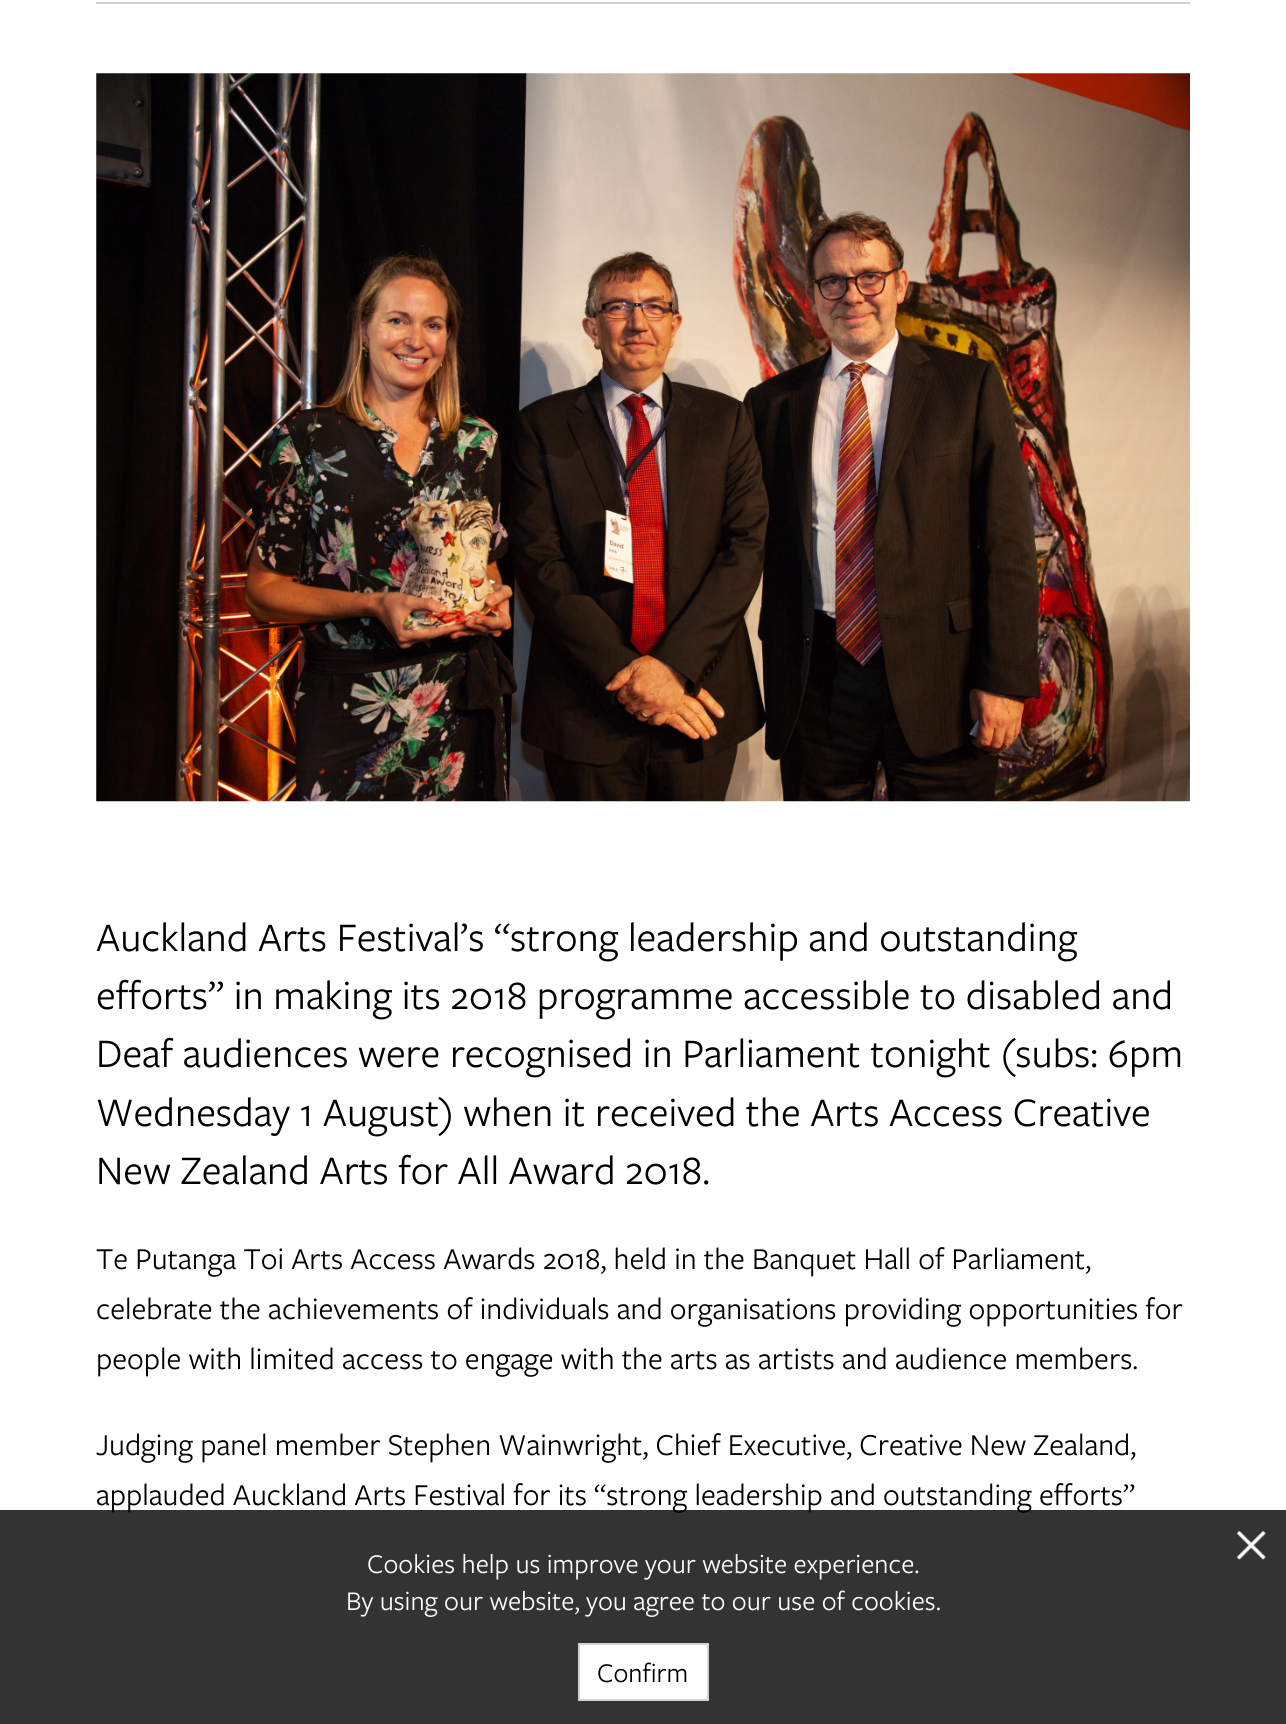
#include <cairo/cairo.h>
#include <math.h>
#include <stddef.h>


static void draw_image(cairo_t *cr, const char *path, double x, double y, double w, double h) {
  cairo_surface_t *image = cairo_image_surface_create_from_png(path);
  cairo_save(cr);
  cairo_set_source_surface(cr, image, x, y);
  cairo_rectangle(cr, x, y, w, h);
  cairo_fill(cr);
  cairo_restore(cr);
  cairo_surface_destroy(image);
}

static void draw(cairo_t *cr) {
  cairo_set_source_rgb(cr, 1, 1, 1);
  cairo_paint(cr);
  cairo_set_source_rgb(cr, 211 / 255.0, 211 / 255.0, 211 / 255.0);
  cairo_rectangle(cr, 96, 2, 1094, 2);
  cairo_fill(cr);
  draw_image(cr, "images/1.png", 96, 73, 1094, 729);
  cairo_select_font_face(cr, "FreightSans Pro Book", CAIRO_FONT_SLANT_NORMAL, CAIRO_FONT_WEIGHT_NORMAL);
  cairo_set_font_size(cr, 42);
  cairo_set_source_rgb(cr, 0, 0, 0);
  cairo_move_to(cr, 96, 951);
  cairo_show_text(cr, "Auckland Arts Festival’s “strong leadership and outstanding");
  cairo_move_to(cr, 96, 1009);
  cairo_show_text(cr, "efforts” in making its 2018 programme accessible to disabled and");
  cairo_move_to(cr, 96, 1067);
  cairo_show_text(cr, "Deaf audiences were recognised in Parliament tonight (subs: 6pm");
  cairo_move_to(cr, 96, 1126);
  cairo_show_text(cr, "Wednesday 1 August) when it received the Arts Access Creative");
  cairo_move_to(cr, 96, 1184);
  cairo_show_text(cr, "New Zealand Arts for All Award 2018.");
  cairo_set_font_size(cr, 31.5);
  cairo_move_to(cr, 96, 1269);
  cairo_show_text(cr, "Te Putanga Toi Arts Access Awards 2018, held in the Banquet Hall of Parliament,");
  cairo_move_to(cr, 96, 1319);
  cairo_show_text(cr, "celebrate the achievements of individuals and organisations providing opportunities for");
  cairo_move_to(cr, 96, 1369);
  cairo_show_text(cr, "people with limited access to engage with the arts as artists and audience members.");
  cairo_move_to(cr, 96, 1455);
  cairo_show_text(cr, "Judging panel member Stephen Wainwright, Chief Executive, Creative New Zealand,");
  cairo_move_to(cr, 96, 1505);
  cairo_show_text(cr, "applauded Auckland Arts Festival for its “strong leadership and outstanding efforts”");
  cairo_set_source_rgba(cr, 0, 0, 0, 0.8);
  cairo_rectangle(cr, 0, 1510, 1286, 214);
  cairo_fill(cr);
  draw_image(cr, "images/2.png", 1237, 1531, 29, 29);
  cairo_set_font_size(cr, 28);
  cairo_set_source_rgb(cr, 1, 1, 1);
  cairo_move_to(cr, 367, 1573);
  cairo_show_text(cr, "Cookies help us improve your website experience.");
  cairo_move_to(cr, 346, 1610);
  cairo_show_text(cr, "By using our website, you agree to our use of cookies.");
  cairo_rectangle(cr, 579, 1644, 129, 56);
  cairo_fill_preserve(cr);
  cairo_set_source_rgb(cr, 210 / 255.0, 210 / 255.0, 210 / 255.0);
  cairo_stroke(cr);
  cairo_set_source_rgb(cr, 0, 0, 0);
  cairo_move_to(cr, 597, 1682);
  cairo_show_text(cr, "Confirm");
}

int main(void) {
  cairo_surface_t *surface = cairo_image_surface_create(CAIRO_FORMAT_RGB24, 1286, 1724);
  cairo_t *cr = cairo_create(surface);
  cairo_font_options_t *options = cairo_font_options_create();
  cairo_font_options_set_hint_metrics(options, CAIRO_HINT_METRICS_OFF);
  cairo_font_options_set_hint_style(options, CAIRO_HINT_STYLE_NONE);
  cairo_set_font_options(cr, options);
  cairo_set_miter_limit(cr, 4);
  draw(cr);
  cairo_surface_write_to_png(surface, "out.png");
  cairo_font_options_destroy(options);
  cairo_destroy(cr);
  cairo_surface_destroy(surface);
  return 0;
}
